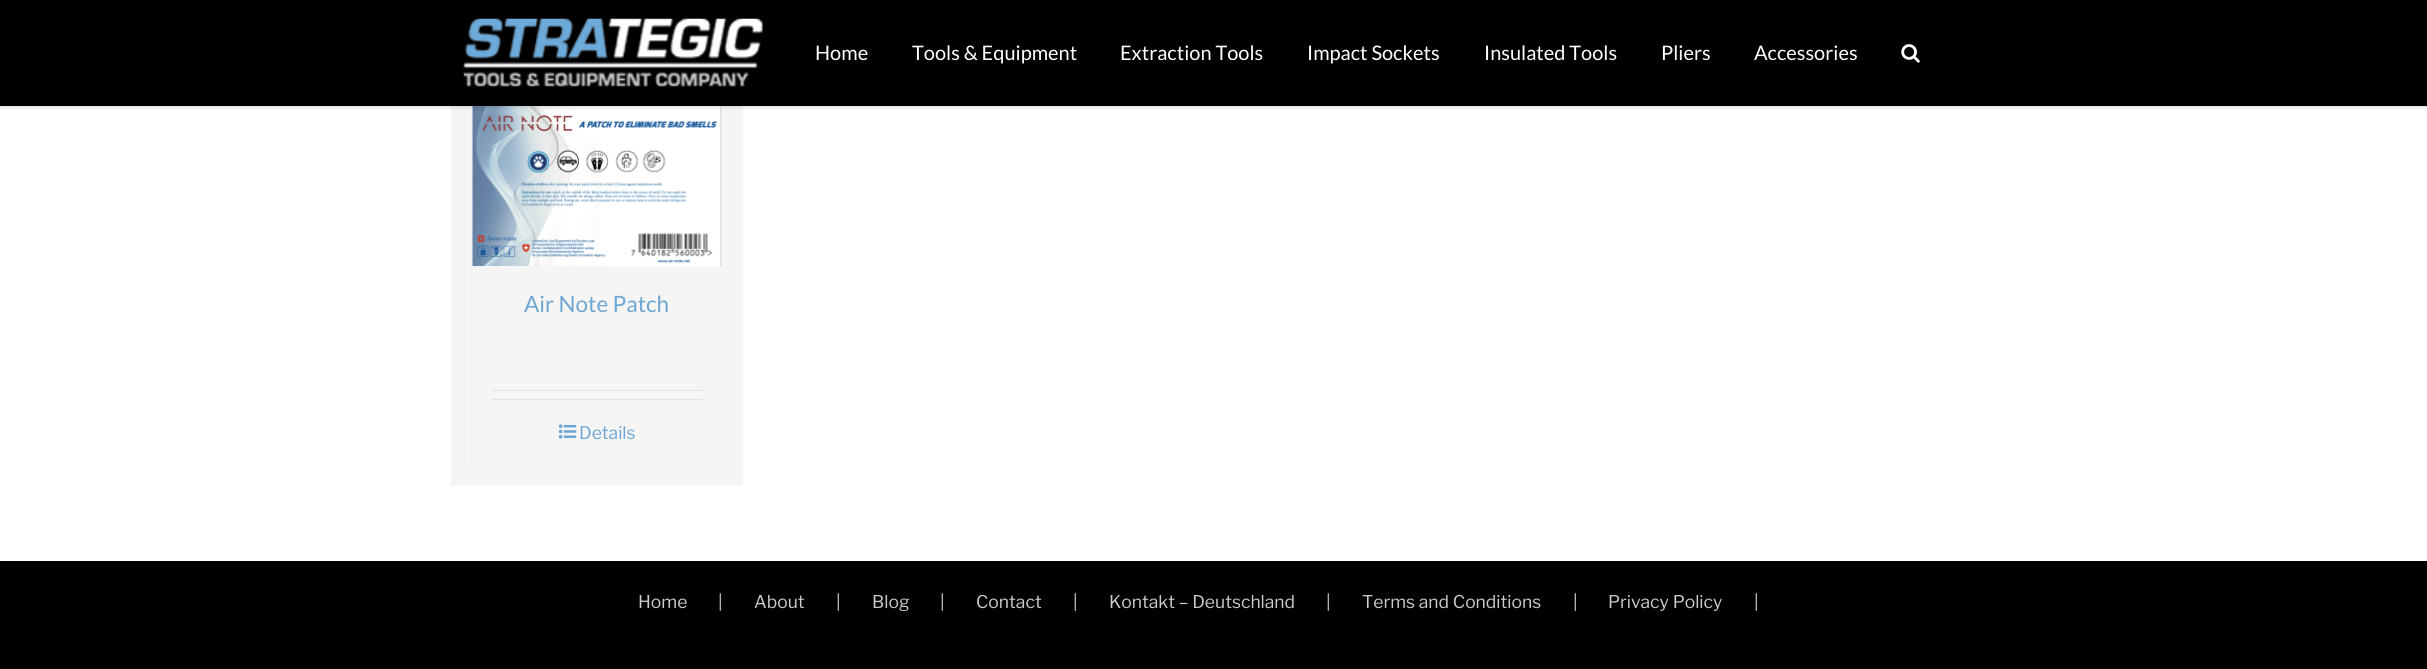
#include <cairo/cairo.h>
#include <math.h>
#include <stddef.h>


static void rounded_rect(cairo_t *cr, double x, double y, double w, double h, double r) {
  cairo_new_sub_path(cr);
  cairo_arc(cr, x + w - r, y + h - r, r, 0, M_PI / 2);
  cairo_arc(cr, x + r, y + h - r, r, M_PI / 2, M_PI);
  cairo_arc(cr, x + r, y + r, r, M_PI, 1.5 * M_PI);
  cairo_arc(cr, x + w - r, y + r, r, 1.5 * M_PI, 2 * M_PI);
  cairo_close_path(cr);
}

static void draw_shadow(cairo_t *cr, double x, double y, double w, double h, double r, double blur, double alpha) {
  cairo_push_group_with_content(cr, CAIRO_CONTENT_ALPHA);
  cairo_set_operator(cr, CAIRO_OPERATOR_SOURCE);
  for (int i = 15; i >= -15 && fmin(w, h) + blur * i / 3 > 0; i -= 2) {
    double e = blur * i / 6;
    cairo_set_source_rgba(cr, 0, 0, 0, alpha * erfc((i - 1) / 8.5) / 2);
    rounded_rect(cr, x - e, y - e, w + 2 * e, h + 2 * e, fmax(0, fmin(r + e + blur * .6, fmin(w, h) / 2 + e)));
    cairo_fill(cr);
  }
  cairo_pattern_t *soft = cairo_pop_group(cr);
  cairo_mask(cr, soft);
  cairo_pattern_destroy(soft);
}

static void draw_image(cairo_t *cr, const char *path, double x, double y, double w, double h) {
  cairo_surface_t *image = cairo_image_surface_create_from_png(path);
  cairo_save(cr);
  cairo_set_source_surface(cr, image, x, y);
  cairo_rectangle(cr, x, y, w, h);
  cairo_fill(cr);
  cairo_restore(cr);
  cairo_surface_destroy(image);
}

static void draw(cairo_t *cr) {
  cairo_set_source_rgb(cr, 1, 1, 1);
  cairo_paint(cr);
  cairo_set_source_rgb(cr, 245 / 255.0, 245 / 255.0, 245 / 255.0);
  cairo_rectangle(cr, 451, 106, 292, 380);
  cairo_fill(cr);
  cairo_set_source_rgb(cr, 242 / 255.0, 243 / 255.0, 245 / 255.0);
  cairo_rectangle(cr, 721, 106, 1, 360);
  cairo_fill(cr);
  cairo_rectangle(cr, 471, 464, 252, 3);
  cairo_fill(cr);
  cairo_rectangle(cr, 471, 106, 1, 360);
  cairo_fill(cr);
  draw_image(cr, "images/3.png", 472, 106, 250, 160);
  cairo_set_source_rgb(cr, 0, 0, 0);
  draw_shadow(cr, 0, 1, 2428, 107, 0, 2, 0.12);
  cairo_set_source_rgb(cr, 0, 0, 0);
  cairo_rectangle(cr, 0, 0, 2427, 106);
  cairo_fill(cr);
  draw_image(cr, "images/1.png", 463, 18, 300, 69);
  draw_image(cr, "images/2.png", 1901, 44, 19, 19);
  cairo_set_source_rgb(cr, 226 / 255.0, 226 / 255.0, 226 / 255.0);
  cairo_rectangle(cr, 491, 390, 212, 1);
  cairo_fill(cr);
  cairo_rectangle(cr, 491, 399, 212, 1);
  cairo_fill(cr);
  draw_image(cr, "images/4.png", 558, 424, 19, 15);
  cairo_set_source_rgb(cr, 0, 0, 0);
  cairo_rectangle(cr, 0, 561, 2427, 108);
  cairo_fill(cr);
  cairo_select_font_face(cr, "Lato", CAIRO_FONT_SLANT_NORMAL, CAIRO_FONT_WEIGHT_NORMAL);
  cairo_set_font_size(cr, 20);
  cairo_set_source_rgb(cr, 1, 1, 1);
  cairo_move_to(cr, 815, 60);
  cairo_show_text(cr, "Home");
  cairo_move_to(cr, 912, 60);
  cairo_show_text(cr, "Tools & Equipment");
  cairo_move_to(cr, 1120, 60);
  cairo_show_text(cr, "Extraction Tools");
  cairo_move_to(cr, 1307, 60);
  cairo_show_text(cr, "Impact Sockets");
  cairo_move_to(cr, 1484, 60);
  cairo_show_text(cr, "Insulated Tools");
  cairo_move_to(cr, 1661, 60);
  cairo_show_text(cr, "Pliers");
  cairo_move_to(cr, 1754, 60);
  cairo_show_text(cr, "Accessories");
  cairo_set_font_size(cr, 22.5);
  cairo_set_source_rgb(cr, 109 / 255.0, 166 / 255.0, 211 / 255.0);
  cairo_move_to(cr, 524, 312);
  cairo_show_text(cr, "Air Note Patch");
  cairo_select_font_face(cr, "Libre Franklin", CAIRO_FONT_SLANT_NORMAL, CAIRO_FONT_WEIGHT_NORMAL);
  cairo_set_font_size(cr, 17.5);
  cairo_move_to(cr, 579, 439);
  cairo_show_text(cr, "Details");
  cairo_set_source_rgb(cr, 204 / 255.0, 204 / 255.0, 204 / 255.0);
  cairo_move_to(cr, 638, 608);
  cairo_show_text(cr, "Home");
  cairo_move_to(cr, 718, 608);
  cairo_show_text(cr, "|");
  cairo_move_to(cr, 754, 608);
  cairo_show_text(cr, "About");
  cairo_move_to(cr, 836, 608);
  cairo_show_text(cr, "|");
  cairo_move_to(cr, 872, 608);
  cairo_show_text(cr, "Blog");
  cairo_move_to(cr, 940, 608);
  cairo_show_text(cr, "|");
  cairo_move_to(cr, 976, 608);
  cairo_show_text(cr, "Contact");
  cairo_move_to(cr, 1073, 608);
  cairo_show_text(cr, "|");
  cairo_move_to(cr, 1109, 608);
  cairo_show_text(cr, "Kontakt – Deutschland");
  cairo_move_to(cr, 1326, 608);
  cairo_show_text(cr, "|");
  cairo_move_to(cr, 1362, 608);
  cairo_show_text(cr, "Terms and Conditions");
  cairo_move_to(cr, 1573, 608);
  cairo_show_text(cr, "|");
  cairo_move_to(cr, 1608, 608);
  cairo_show_text(cr, "Privacy Policy");
  cairo_move_to(cr, 1754, 608);
  cairo_show_text(cr, "|");
}

int main(void) {
  cairo_surface_t *surface = cairo_image_surface_create(CAIRO_FORMAT_RGB24, 2427, 669);
  cairo_t *cr = cairo_create(surface);
  cairo_font_options_t *options = cairo_font_options_create();
  cairo_font_options_set_hint_metrics(options, CAIRO_HINT_METRICS_OFF);
  cairo_font_options_set_hint_style(options, CAIRO_HINT_STYLE_NONE);
  cairo_set_font_options(cr, options);
  cairo_set_miter_limit(cr, 4);
  draw(cr);
  cairo_surface_write_to_png(surface, "out.png");
  cairo_font_options_destroy(options);
  cairo_destroy(cr);
  cairo_surface_destroy(surface);
  return 0;
}
